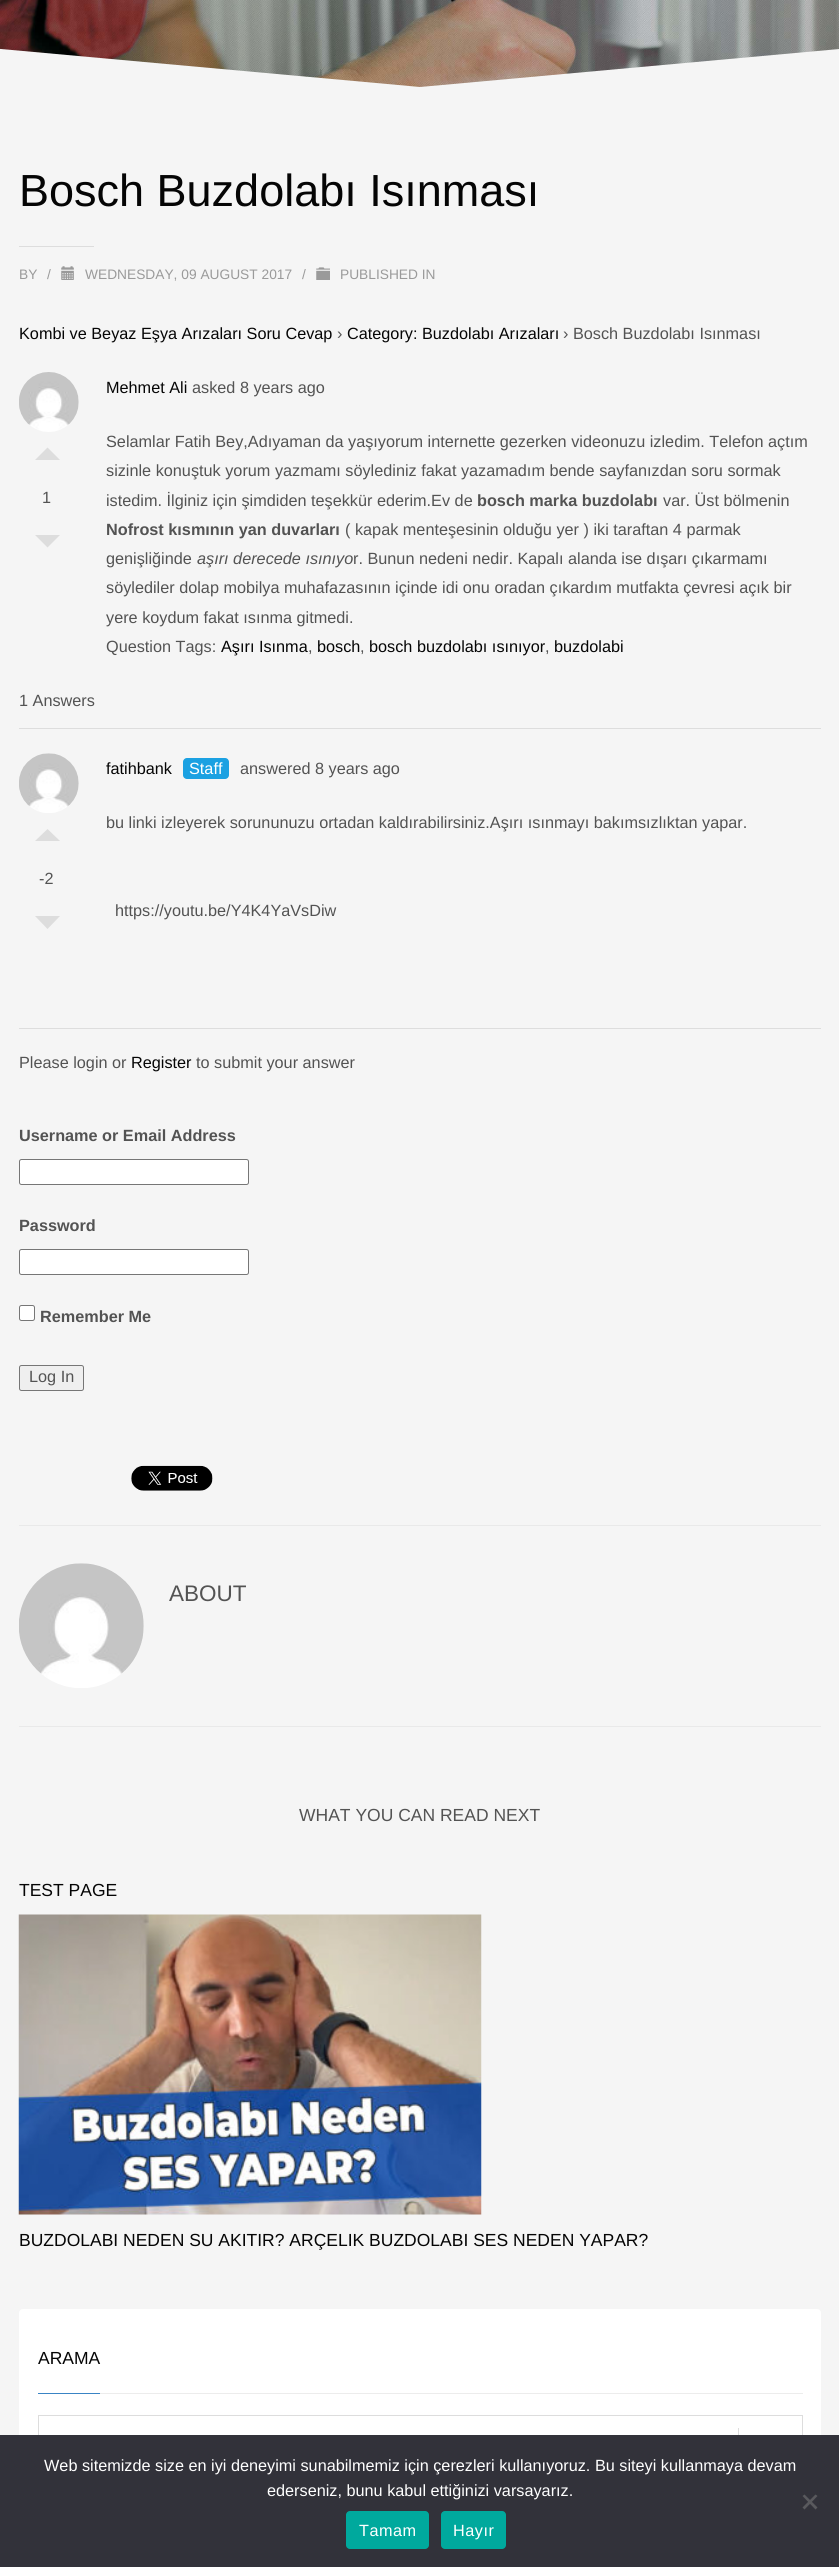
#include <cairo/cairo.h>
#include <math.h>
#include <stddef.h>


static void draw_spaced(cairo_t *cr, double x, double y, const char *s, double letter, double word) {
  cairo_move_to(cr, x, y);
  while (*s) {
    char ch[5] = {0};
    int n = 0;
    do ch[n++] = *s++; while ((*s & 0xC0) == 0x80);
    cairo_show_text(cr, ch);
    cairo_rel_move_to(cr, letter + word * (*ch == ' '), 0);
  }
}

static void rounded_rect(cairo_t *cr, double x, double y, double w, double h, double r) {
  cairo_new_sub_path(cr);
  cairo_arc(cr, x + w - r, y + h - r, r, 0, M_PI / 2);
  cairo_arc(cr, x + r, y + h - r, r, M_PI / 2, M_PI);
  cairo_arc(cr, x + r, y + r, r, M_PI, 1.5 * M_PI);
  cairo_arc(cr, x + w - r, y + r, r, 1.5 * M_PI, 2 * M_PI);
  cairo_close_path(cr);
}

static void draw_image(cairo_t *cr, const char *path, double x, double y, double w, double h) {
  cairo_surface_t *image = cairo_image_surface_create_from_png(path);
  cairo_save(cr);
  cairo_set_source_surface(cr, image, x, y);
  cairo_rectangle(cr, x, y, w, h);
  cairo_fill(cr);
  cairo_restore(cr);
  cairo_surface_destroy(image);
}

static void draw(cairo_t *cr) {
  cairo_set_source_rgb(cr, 245 / 255.0, 245 / 255.0, 245 / 255.0);
  cairo_paint(cr);
  draw_image(cr, "images/1.png", 0, 0, 839, 87);
  cairo_set_source_rgb(cr, 245 / 255.0, 245 / 255.0, 245 / 255.0);
  cairo_new_path(cr);
  cairo_move_to(cr, -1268, 91);
  cairo_line_to(cr, -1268, -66);
  cairo_line_to(cr, 420, 87);
  cairo_line_to(cr, 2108, -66);
  cairo_line_to(cr, 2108, 91);
  cairo_close_path(cr);
  cairo_fill(cr);
  cairo_set_source_rgb(cr, 221 / 255.0, 221 / 255.0, 221 / 255.0);
  cairo_rectangle(cr, 19, 246, 75, 1);
  cairo_fill(cr);
  draw_image(cr, "images/2.png", 61, 266, 13, 14);
  draw_image(cr, "images/3.png", 316, 267, 14, 13);
  draw_image(cr, "images/4.png", 19, 372, 60, 60);
  cairo_new_path(cr);
  cairo_move_to(cr, 60, 460);
  cairo_line_to(cr, 35, 460);
  cairo_line_to(cr, 47.5, 447.5);
  cairo_close_path(cr);
  cairo_fill(cr);
  cairo_new_path(cr);
  cairo_move_to(cr, 35, 535);
  cairo_line_to(cr, 60, 535);
  cairo_line_to(cr, 47.5, 547.5);
  cairo_close_path(cr);
  cairo_fill(cr);
  cairo_rectangle(cr, 19, 728, 802, 1);
  cairo_fill(cr);
  draw_image(cr, "images/5.png", 19, 753, 60, 60);
  cairo_set_source_rgb(cr, 27 / 255.0, 161 / 255.0, 226 / 255.0);
  rounded_rect(cr, 183, 758, 46, 21, 4);
  cairo_fill(cr);
  cairo_set_source_rgb(cr, 221 / 255.0, 221 / 255.0, 221 / 255.0);
  cairo_new_path(cr);
  cairo_move_to(cr, 60, 841);
  cairo_line_to(cr, 35, 841);
  cairo_line_to(cr, 47.5, 829);
  cairo_close_path(cr);
  cairo_fill(cr);
  cairo_new_path(cr);
  cairo_move_to(cr, 35, 916);
  cairo_line_to(cr, 60, 916);
  cairo_line_to(cr, 47.5, 929);
  cairo_close_path(cr);
  cairo_fill(cr);
  cairo_rectangle(cr, 19, 1028, 802, 1);
  cairo_fill(cr);
  cairo_set_source_rgb(cr, 1, 1, 1);
  rounded_rect(cr, 19.5, 1159.5, 229, 25, 2);
  cairo_fill_preserve(cr);
  cairo_set_source_rgb(cr, 118 / 255.0, 118 / 255.0, 118 / 255.0);
  cairo_set_line_width(cr, 1);
  cairo_stroke(cr);
  cairo_set_source_rgb(cr, 1, 1, 1);
  rounded_rect(cr, 19.5, 1249.5, 229, 25, 2);
  cairo_fill_preserve(cr);
  cairo_set_source_rgb(cr, 118 / 255.0, 118 / 255.0, 118 / 255.0);
  cairo_stroke(cr);
  cairo_set_source_rgb(cr, 1, 1, 1);
  rounded_rect(cr, 19.5, 1305.5, 15, 15, 2);
  cairo_fill_preserve(cr);
  cairo_set_source_rgb(cr, 118 / 255.0, 118 / 255.0, 118 / 255.0);
  cairo_stroke(cr);
  cairo_set_source_rgb(cr, 239 / 255.0, 239 / 255.0, 239 / 255.0);
  rounded_rect(cr, 19.5, 1365.5, 64, 25, 2);
  cairo_fill_preserve(cr);
  cairo_set_source_rgb(cr, 118 / 255.0, 118 / 255.0, 118 / 255.0);
  cairo_stroke(cr);
  draw_image(cr, "images/6.png", 131, 1465, 82, 26);
  cairo_set_source_rgb(cr, 233 / 255.0, 233 / 255.0, 233 / 255.0);
  cairo_rectangle(cr, 19, 1525, 802, 1);
  cairo_fill(cr);
  cairo_rectangle(cr, 19, 1726, 802, 1);
  cairo_fill(cr);
  draw_image(cr, "images/7.png", 19, 1563, 125, 125);
  draw_image(cr, "images/8.png", 18, 1914, 464, 301);
  cairo_set_source_rgb(cr, 1, 1, 1);
  rounded_rect(cr, 19, 2309, 802, 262, 4);
  cairo_fill(cr);
  cairo_set_source_rgb(cr, 57 / 255.0, 132 / 255.0, 197 / 255.0);
  cairo_rectangle(cr, 38, 2393, 62, 1);
  cairo_fill(cr);
  cairo_set_source_rgb(cr, 236 / 255.0, 236 / 255.0, 236 / 255.0);
  cairo_rectangle(cr, 100, 2393, 703, 1);
  cairo_fill(cr);
  cairo_rectangle(cr, 38.5, 2415.5, 764, 52);
  cairo_set_source_rgb(cr, 221 / 255.0, 221 / 255.0, 221 / 255.0);
  cairo_stroke(cr);
  cairo_rectangle(cr, 738, 2428, 1, 7);
  cairo_fill(cr);
  cairo_set_source_rgb(cr, 50 / 255.0, 50 / 255.0, 58 / 255.0);
  cairo_rectangle(cr, 0, 2435, 839, 132);
  cairo_fill(cr);
  cairo_set_source_rgb(cr, 89 / 255.0, 89 / 255.0, 93 / 255.0);
  cairo_new_path(cr);
  cairo_move_to(cr, 815.5, 2494.5);
  cairo_line_to(cr, 817.5, 2496);
  cairo_line_to(cr, 804.5, 2509.5);
  cairo_line_to(cr, 802.5, 2507.5);
  cairo_close_path(cr);
  cairo_fill(cr);
  cairo_new_path(cr);
  cairo_move_to(cr, 802.5, 2496);
  cairo_line_to(cr, 804.5, 2494.5);
  cairo_line_to(cr, 817.5, 2507.5);
  cairo_line_to(cr, 815.5, 2509.5);
  cairo_close_path(cr);
  cairo_fill(cr);
  cairo_set_source_rgb(cr, 0, 169 / 255.0, 157 / 255.0);
  rounded_rect(cr, 346, 2511, 83, 38, 4);
  cairo_fill(cr);
  rounded_rect(cr, 441, 2511, 65, 38, 4);
  cairo_fill(cr);
  cairo_select_font_face(cr, "Liberation Sans", CAIRO_FONT_SLANT_NORMAL, CAIRO_FONT_WEIGHT_NORMAL);
  cairo_set_font_size(cr, 45);
  cairo_set_source_rgb(cr, 5 / 255.0, 5 / 255.0, 5 / 255.0);
  cairo_move_to(cr, 19, 206);
  cairo_show_text(cr, "Bosch Buzdolabı Isınması");
  cairo_set_font_size(cr, 13.75);
  cairo_set_source_rgb(cr, 154 / 255.0, 154 / 255.0, 154 / 255.0);
  cairo_move_to(cr, 19, 279);
  cairo_show_text(cr, "BY");
  cairo_move_to(cr, 47, 279);
  cairo_show_text(cr, "/");
  cairo_move_to(cr, 85, 279);
  cairo_show_text(cr, "WEDNESDAY, 09 AUGUST 2017");
  cairo_move_to(cr, 302, 279);
  cairo_show_text(cr, "/");
  cairo_move_to(cr, 340, 279);
  cairo_show_text(cr, "PUBLISHED IN");
  cairo_set_font_size(cr, 16.25);
  cairo_set_source_rgb(cr, 5 / 255.0, 5 / 255.0, 5 / 255.0);
  cairo_move_to(cr, 19, 339);
  cairo_show_text(cr, "Kombi ve Beyaz Eşya Arızaları Soru Cevap");
  cairo_set_source_rgb(cr, 83 / 255.0, 83 / 255.0, 83 / 255.0);
  cairo_move_to(cr, 337, 339);
  cairo_show_text(cr, "›");
  cairo_set_source_rgb(cr, 5 / 255.0, 5 / 255.0, 5 / 255.0);
  cairo_move_to(cr, 347, 339);
  cairo_show_text(cr, "Category: Buzdolabı Arızaları");
  cairo_set_source_rgb(cr, 83 / 255.0, 83 / 255.0, 83 / 255.0);
  cairo_move_to(cr, 563, 339);
  cairo_show_text(cr, "› Bosch Buzdolabı Isınması");
  cairo_set_source_rgb(cr, 5 / 255.0, 5 / 255.0, 5 / 255.0);
  cairo_move_to(cr, 106, 393);
  cairo_show_text(cr, "Mehmet Ali");
  cairo_set_source_rgb(cr, 83 / 255.0, 83 / 255.0, 83 / 255.0);
  cairo_move_to(cr, 192, 393);
  cairo_show_text(cr, "asked 8 years ago");
  cairo_move_to(cr, 42, 503);
  cairo_show_text(cr, "1");
  cairo_move_to(cr, 106, 447);
  cairo_show_text(cr, "Selamlar Fatih Bey,Adıyaman da yaşıyorum internette gezerken videonuzu izledim. Telefon açtım");
  cairo_move_to(cr, 106, 476);
  cairo_show_text(cr, "sizinle konuştuk yorum yazmamı söylediniz fakat yazamadım bende sayfanızdan soru sormak");
  cairo_move_to(cr, 106, 506);
  cairo_show_text(cr, "istedim. İlginiz için şimdiden teşekkür ederim.Ev de");
  cairo_select_font_face(cr, "Liberation Sans", CAIRO_FONT_SLANT_NORMAL, CAIRO_FONT_WEIGHT_BOLD);
  cairo_move_to(cr, 477, 506);
  cairo_show_text(cr, "bosch marka buzdolabı");
  cairo_select_font_face(cr, "Liberation Sans", CAIRO_FONT_SLANT_NORMAL, CAIRO_FONT_WEIGHT_NORMAL);
  cairo_move_to(cr, 663, 506);
  cairo_show_text(cr, "var. Üst bölmenin");
  cairo_select_font_face(cr, "Liberation Sans", CAIRO_FONT_SLANT_NORMAL, CAIRO_FONT_WEIGHT_BOLD);
  cairo_move_to(cr, 106, 535);
  cairo_show_text(cr, "Nofrost kısmının yan duvarları");
  cairo_select_font_face(cr, "Liberation Sans", CAIRO_FONT_SLANT_NORMAL, CAIRO_FONT_WEIGHT_NORMAL);
  cairo_move_to(cr, 345, 535);
  cairo_show_text(cr, "( kapak menteşesinin olduğu yer ) iki taraftan 4 parmak");
  cairo_move_to(cr, 106, 564);
  cairo_show_text(cr, "genişliğinde");
  cairo_select_font_face(cr, "Liberation Sans", CAIRO_FONT_SLANT_ITALIC, CAIRO_FONT_WEIGHT_NORMAL);
  cairo_move_to(cr, 197, 564);
  cairo_show_text(cr, "aşırı derecede ısınıyo");
  cairo_select_font_face(cr, "Liberation Sans", CAIRO_FONT_SLANT_NORMAL, CAIRO_FONT_WEIGHT_NORMAL);
  cairo_move_to(cr, 353, 564);
  cairo_show_text(cr, "r. Bunun nedeni nedir. Kapalı alanda ise dışarı çıkarmamı");
  cairo_move_to(cr, 106, 593);
  cairo_show_text(cr, "söylediler dolap mobilya muhafazasının içinde idi onu oradan çıkardım mutfakta çevresi açık bir");
  cairo_move_to(cr, 106, 623);
  cairo_show_text(cr, "yere koydum fakat ısınma gitmedi.");
  cairo_move_to(cr, 106, 652);
  cairo_show_text(cr, "Question Tags:");
  cairo_set_source_rgb(cr, 5 / 255.0, 5 / 255.0, 5 / 255.0);
  cairo_move_to(cr, 221, 652);
  cairo_show_text(cr, "Aşırı Isınma");
  cairo_set_source_rgb(cr, 83 / 255.0, 83 / 255.0, 83 / 255.0);
  cairo_move_to(cr, 308, 652);
  cairo_show_text(cr, ",");
  cairo_set_source_rgb(cr, 5 / 255.0, 5 / 255.0, 5 / 255.0);
  cairo_move_to(cr, 317, 652);
  cairo_show_text(cr, "bosch");
  cairo_set_source_rgb(cr, 83 / 255.0, 83 / 255.0, 83 / 255.0);
  cairo_move_to(cr, 360, 652);
  cairo_show_text(cr, ",");
  cairo_set_source_rgb(cr, 5 / 255.0, 5 / 255.0, 5 / 255.0);
  cairo_move_to(cr, 369, 652);
  cairo_show_text(cr, "bosch buzdolabı ısınıyor");
  cairo_set_source_rgb(cr, 83 / 255.0, 83 / 255.0, 83 / 255.0);
  cairo_move_to(cr, 545, 652);
  cairo_show_text(cr, ",");
  cairo_set_source_rgb(cr, 5 / 255.0, 5 / 255.0, 5 / 255.0);
  cairo_move_to(cr, 554, 652);
  cairo_show_text(cr, "buzdolabi");
  cairo_set_source_rgb(cr, 83 / 255.0, 83 / 255.0, 83 / 255.0);
  cairo_move_to(cr, 19, 706);
  cairo_show_text(cr, "1 Answers");
  cairo_set_source_rgb(cr, 5 / 255.0, 5 / 255.0, 5 / 255.0);
  cairo_move_to(cr, 106, 774);
  cairo_show_text(cr, "fatihbank");
  cairo_set_source_rgb(cr, 1, 1, 1);
  cairo_move_to(cr, 189, 774);
  cairo_show_text(cr, "Staff");
  cairo_set_source_rgb(cr, 83 / 255.0, 83 / 255.0, 83 / 255.0);
  cairo_move_to(cr, 240, 774);
  cairo_show_text(cr, "answered 8 years ago");
  cairo_move_to(cr, 39, 884);
  cairo_show_text(cr, "-2");
  cairo_move_to(cr, 106, 828);
  cairo_show_text(cr, "bu linki izleyerek sorununuzu ortadan kaldırabilirsiniz.Aşırı ısınmayı bakımsızlıktan yapar.");
  cairo_move_to(cr, 115, 916);
  cairo_show_text(cr, "https://youtu.be/Y4K4YaVsDiw");
  cairo_move_to(cr, 19, 1068);
  cairo_show_text(cr, "Please login or");
  cairo_set_source_rgb(cr, 5 / 255.0, 5 / 255.0, 5 / 255.0);
  cairo_move_to(cr, 131, 1068);
  cairo_show_text(cr, "Register");
  cairo_set_source_rgb(cr, 83 / 255.0, 83 / 255.0, 83 / 255.0);
  cairo_move_to(cr, 196, 1068);
  cairo_show_text(cr, "to submit your answer");
  cairo_select_font_face(cr, "Liberation Sans", CAIRO_FONT_SLANT_NORMAL, CAIRO_FONT_WEIGHT_BOLD);
  cairo_move_to(cr, 19, 1141);
  cairo_show_text(cr, "Username or Email Address");
  cairo_move_to(cr, 19, 1231);
  cairo_show_text(cr, "Password");
  cairo_move_to(cr, 40, 1322);
  cairo_show_text(cr, "Remember Me");
  cairo_select_font_face(cr, "Liberation Sans", CAIRO_FONT_SLANT_NORMAL, CAIRO_FONT_WEIGHT_NORMAL);
  cairo_move_to(cr, 29, 1382);
  cairo_show_text(cr, "Log In");
  cairo_set_font_size(cr, 22.5);
  cairo_move_to(cr, 169, 1601);
  cairo_show_text(cr, "ABOUT");
  cairo_set_font_size(cr, 17.5);
  cairo_move_to(cr, 299, 1821);
  cairo_show_text(cr, "WHAT YOU CAN READ NEXT");
  cairo_set_source_rgb(cr, 5 / 255.0, 5 / 255.0, 5 / 255.0);
  cairo_move_to(cr, 19, 1896);
  cairo_show_text(cr, "TEST PAGE");
  cairo_move_to(cr, 19, 2246);
  cairo_show_text(cr, "BUZDOLABI NEDEN SU AKITIR? ARÇELIK BUZDOLABI SES NEDEN YAPAR?");
  cairo_move_to(cr, 38, 2364);
  cairo_show_text(cr, "ARAMA");
  cairo_set_font_size(cr, 16.25);
  cairo_set_source_rgb(cr, 1, 1, 1);
  cairo_move_to(cr, 44, 2471);
  cairo_show_text(cr, "Web sitemizde size en iyi deneyimi sunabilmemiz için çerezleri kullanıyoruz. Bu siteyi kullanmaya devam");
  cairo_move_to(cr, 267, 2496);
  cairo_show_text(cr, "ederseniz, bunu kabul ettiğinizi varsayarız.");
  draw_spaced(cr, 359, 2536, "Tamam", 0.5, 0);
  draw_spaced(cr, 453, 2536, "Hayır", 0.5, 0);
}

int main(void) {
  cairo_surface_t *surface = cairo_image_surface_create(CAIRO_FORMAT_RGB24, 839, 2567);
  cairo_t *cr = cairo_create(surface);
  cairo_font_options_t *options = cairo_font_options_create();
  cairo_font_options_set_hint_metrics(options, CAIRO_HINT_METRICS_OFF);
  cairo_font_options_set_hint_style(options, CAIRO_HINT_STYLE_NONE);
  cairo_set_font_options(cr, options);
  cairo_set_miter_limit(cr, 4);
  draw(cr);
  cairo_surface_write_to_png(surface, "out.png");
  cairo_font_options_destroy(options);
  cairo_destroy(cr);
  cairo_surface_destroy(surface);
  return 0;
}
